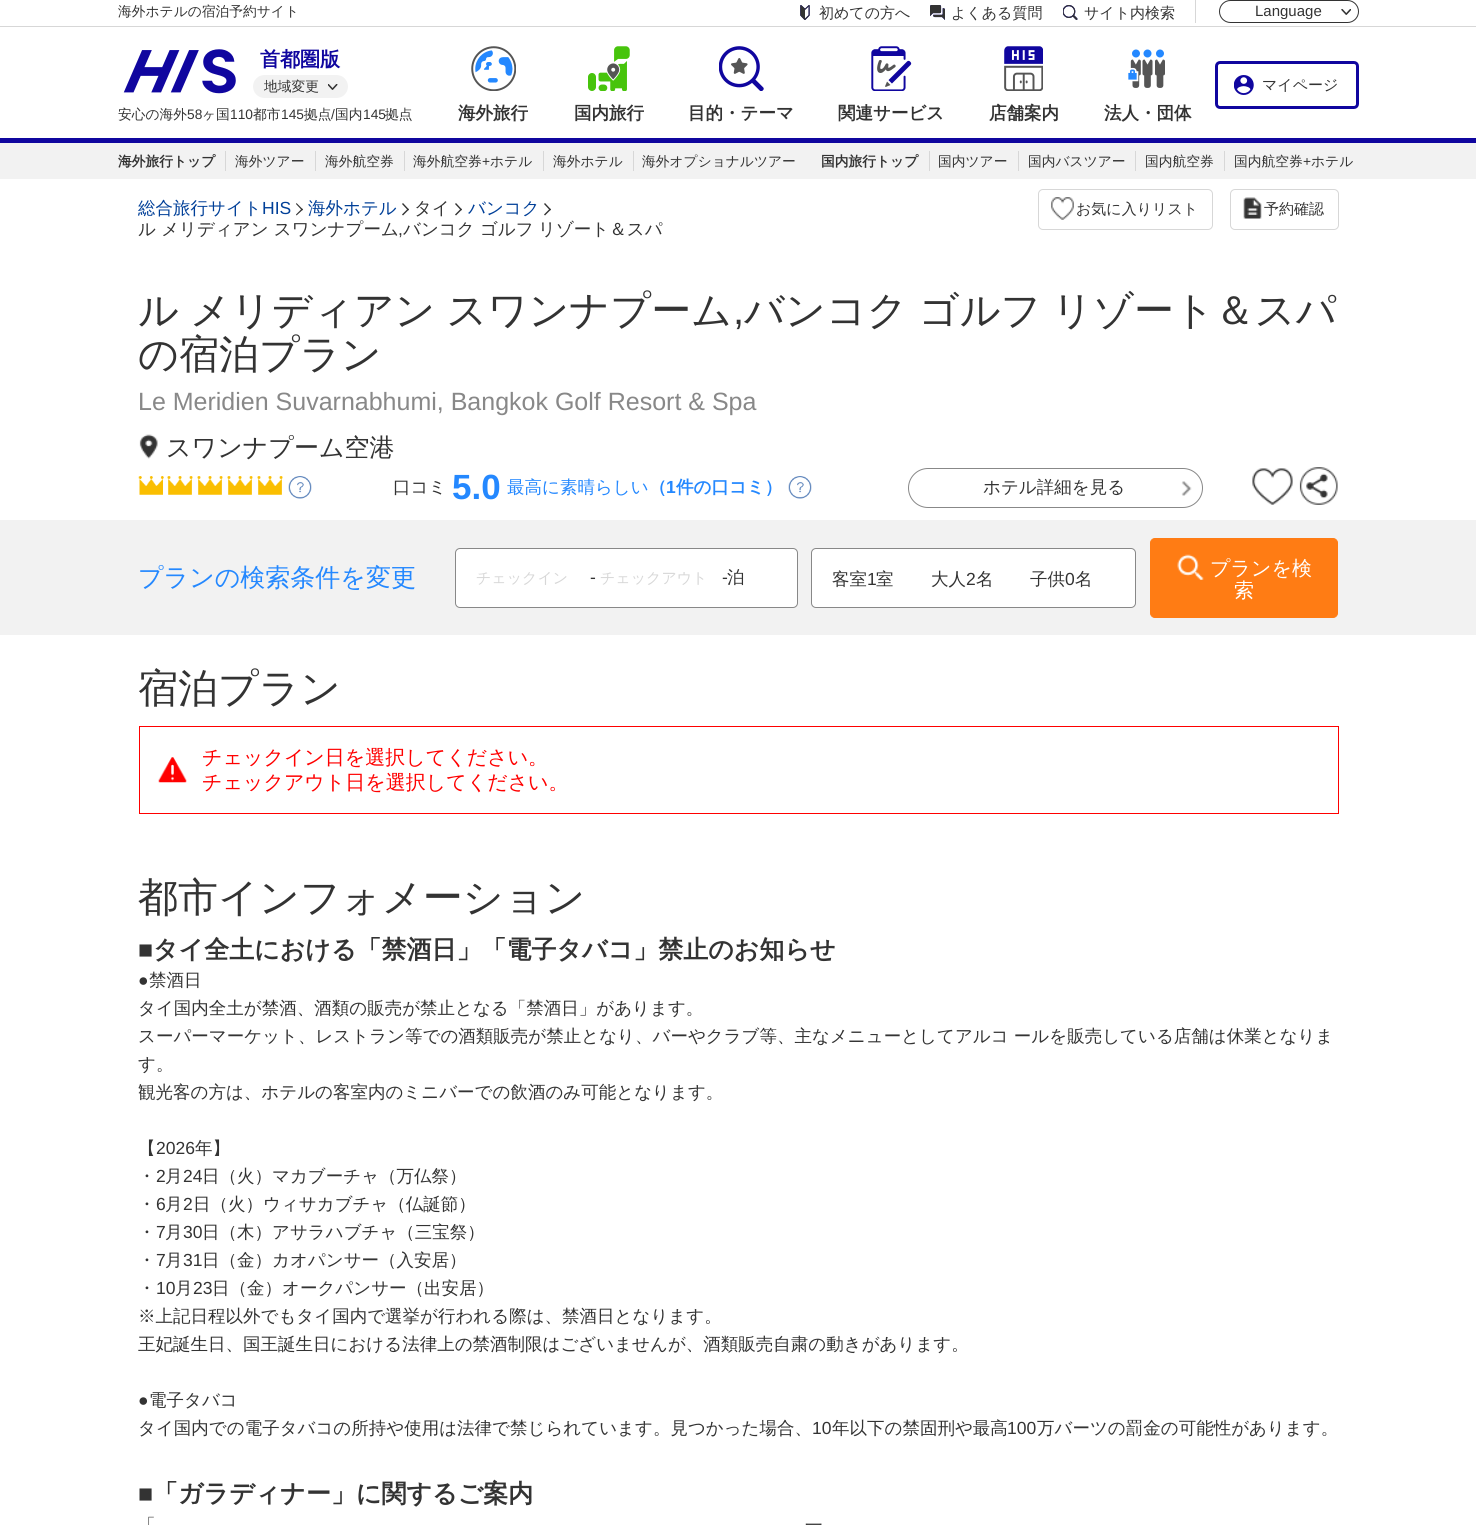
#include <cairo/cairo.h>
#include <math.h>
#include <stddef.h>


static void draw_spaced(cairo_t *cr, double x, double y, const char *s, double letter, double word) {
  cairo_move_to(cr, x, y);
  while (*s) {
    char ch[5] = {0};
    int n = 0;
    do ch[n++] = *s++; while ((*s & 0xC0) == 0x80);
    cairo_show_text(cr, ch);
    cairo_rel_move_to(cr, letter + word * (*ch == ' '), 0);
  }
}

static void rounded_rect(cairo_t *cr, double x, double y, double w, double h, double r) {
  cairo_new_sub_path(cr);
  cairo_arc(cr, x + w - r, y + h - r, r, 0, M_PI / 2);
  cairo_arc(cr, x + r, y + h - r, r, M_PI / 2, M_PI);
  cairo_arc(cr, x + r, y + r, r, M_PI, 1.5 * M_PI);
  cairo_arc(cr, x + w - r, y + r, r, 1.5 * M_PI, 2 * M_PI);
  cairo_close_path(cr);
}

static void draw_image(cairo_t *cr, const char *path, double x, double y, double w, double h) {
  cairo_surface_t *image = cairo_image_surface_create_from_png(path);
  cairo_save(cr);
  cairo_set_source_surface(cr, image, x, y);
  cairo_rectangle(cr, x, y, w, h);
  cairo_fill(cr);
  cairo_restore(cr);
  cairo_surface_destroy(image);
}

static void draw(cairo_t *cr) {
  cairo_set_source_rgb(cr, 1, 1, 1);
  cairo_paint(cr);
  cairo_set_source_rgb(cr, 215 / 255.0, 215 / 255.0, 215 / 255.0);
  cairo_rectangle(cr, 0, 26, 1476, 1);
  cairo_fill(cr);
  draw_image(cr, "images/1.png", 800, 5, 10, 15);
  draw_image(cr, "images/2.png", 800, 5, 10, 15);
  draw_image(cr, "images/3.png", 930, 5, 15, 15);
  draw_image(cr, "images/4.png", 930, 5, 15, 15);
  draw_image(cr, "images/5.png", 1063, 5, 15, 15);
  draw_image(cr, "images/6.png", 1063, 5, 15, 15);
  cairo_rectangle(cr, 1195, 0, 1, 23);
  cairo_fill(cr);
  draw_image(cr, "images/7.png", 1341, 9, 10, 6);
  rounded_rect(cr, 1219.5, 0.5, 139, 22, 11);
  cairo_set_source_rgb(cr, 51 / 255.0, 51 / 255.0, 51 / 255.0);
  cairo_set_line_width(cr, 1);
  cairo_stroke(cr);
  draw_image(cr, "images/8.png", 123, 49, 113, 45);
  cairo_set_source_rgb(cr, 242 / 255.0, 242 / 255.0, 242 / 255.0);
  rounded_rect(cr, 253, 75, 95, 23, 11.5);
  cairo_fill(cr);
  draw_image(cr, "images/9.png", 328, 84, 10, 6);
  draw_image(cr, "images/10.png", 328, 84, 10, 6);
  rounded_rect(cr, 1216.5, 62.5, 141, 45, 3.5);
  cairo_set_source_rgb(cr, 16 / 255.0, 6 / 255.0, 159 / 255.0);
  cairo_set_line_width(cr, 3);
  cairo_stroke(cr);
  draw_image(cr, "images/11.png", 1234, 75, 20, 20);
  draw_image(cr, "images/12.png", 471, 46, 45, 45);
  draw_image(cr, "images/13.png", 588, 46, 42, 45);
  draw_image(cr, "images/14.png", 719, 46, 45, 45);
  draw_image(cr, "images/15.png", 871, 46, 41, 45);
  draw_image(cr, "images/16.png", 1004, 46, 39, 45);
  draw_image(cr, "images/17.png", 1128, 49, 37, 39);
  cairo_set_source_rgb(cr, 242 / 255.0, 242 / 255.0, 242 / 255.0);
  cairo_rectangle(cr, 0, 143, 1476, 36);
  cairo_fill(cr);
  cairo_set_source_rgb(cr, 16 / 255.0, 6 / 255.0, 159 / 255.0);
  cairo_rectangle(cr, 0, 138, 1476, 5);
  cairo_fill(cr);
  cairo_set_source_rgb(cr, 215 / 255.0, 215 / 255.0, 215 / 255.0);
  cairo_rectangle(cr, 225, 151, 1, 20);
  cairo_fill(cr);
  cairo_rectangle(cr, 315, 151, 1, 20);
  cairo_fill(cr);
  cairo_rectangle(cr, 404, 151, 1, 20);
  cairo_fill(cr);
  cairo_rectangle(cr, 543, 151, 1, 20);
  cairo_fill(cr);
  cairo_rectangle(cr, 633, 151, 1, 20);
  cairo_fill(cr);
  cairo_rectangle(cr, 929, 151, 1, 20);
  cairo_fill(cr);
  cairo_rectangle(cr, 1018, 151, 1, 20);
  cairo_fill(cr);
  cairo_rectangle(cr, 1135, 151, 1, 20);
  cairo_fill(cr);
  cairo_rectangle(cr, 1224, 151, 1, 20);
  cairo_fill(cr);
  cairo_set_source_rgb(cr, 51 / 255.0, 51 / 255.0, 51 / 255.0);
  cairo_new_path(cr);
  cairo_move_to(cr, 296.5, 203);
  cairo_line_to(cr, 303, 209.5);
  cairo_line_to(cr, 302, 210.5);
  cairo_line_to(cr, 296, 204);
  cairo_close_path(cr);
  cairo_fill(cr);
  cairo_new_path(cr);
  cairo_move_to(cr, 302, 208.5);
  cairo_line_to(cr, 303, 209.5);
  cairo_line_to(cr, 296.5, 215.5);
  cairo_line_to(cr, 296, 214.5);
  cairo_close_path(cr);
  cairo_fill(cr);
  cairo_new_path(cr);
  cairo_move_to(cr, 403, 203);
  cairo_line_to(cr, 409, 209.5);
  cairo_line_to(cr, 408, 210.5);
  cairo_line_to(cr, 402, 204);
  cairo_close_path(cr);
  cairo_fill(cr);
  cairo_new_path(cr);
  cairo_move_to(cr, 408, 208.5);
  cairo_line_to(cr, 409, 209.5);
  cairo_line_to(cr, 403, 215.5);
  cairo_line_to(cr, 402, 214.5);
  cairo_close_path(cr);
  cairo_fill(cr);
  cairo_new_path(cr);
  cairo_move_to(cr, 456, 203);
  cairo_line_to(cr, 462, 209.5);
  cairo_line_to(cr, 461, 210.5);
  cairo_line_to(cr, 455, 204);
  cairo_close_path(cr);
  cairo_fill(cr);
  cairo_new_path(cr);
  cairo_move_to(cr, 461, 208.5);
  cairo_line_to(cr, 462, 209.5);
  cairo_line_to(cr, 456, 215.5);
  cairo_line_to(cr, 455, 214.5);
  cairo_close_path(cr);
  cairo_fill(cr);
  cairo_new_path(cr);
  cairo_move_to(cr, 545, 203);
  cairo_line_to(cr, 551, 209.5);
  cairo_line_to(cr, 550, 210.5);
  cairo_line_to(cr, 544, 204);
  cairo_close_path(cr);
  cairo_fill(cr);
  cairo_new_path(cr);
  cairo_move_to(cr, 550, 208.5);
  cairo_line_to(cr, 551, 209.5);
  cairo_line_to(cr, 545, 215.5);
  cairo_line_to(cr, 544, 214.5);
  cairo_close_path(cr);
  cairo_fill(cr);
  draw_image(cr, "images/18.png", 1051, 197, 23, 23);
  rounded_rect(cr, 1038.5, 189.5, 174, 40, 4.5);
  cairo_set_source_rgb(cr, 215 / 255.0, 215 / 255.0, 215 / 255.0);
  cairo_set_line_width(cr, 1);
  cairo_stroke(cr);
  draw_image(cr, "images/19.png", 1243, 197, 19, 22);
  rounded_rect(cr, 1230.5, 189.5, 108, 40, 4.5);
  cairo_stroke(cr);
  draw_image(cr, "images/20.png", 139, 434, 19, 25);
  draw_image(cr, "images/21.png", 138, 476, 26, 19);
  draw_image(cr, "images/22.png", 167, 476, 26, 19);
  draw_image(cr, "images/22.png", 197, 476, 26, 19);
  draw_image(cr, "images/22.png", 227, 476, 26, 19);
  draw_image(cr, "images/22.png", 257, 476, 26, 19);
  draw_image(cr, "images/23.png", 288, 476, 24, 23);
  draw_image(cr, "images/24.png", 788, 476, 24, 23);
  rounded_rect(cr, 908.5, 468.5, 294, 39, 19.5);
  cairo_set_source_rgb(cr, 136 / 255.0, 136 / 255.0, 136 / 255.0);
  cairo_stroke(cr);
  draw_image(cr, "images/25.png", 1181, 481, 11, 15);
  draw_image(cr, "images/26.png", 1252, 468, 41, 37);
  draw_image(cr, "images/27.png", 1299, 467, 39, 38);
  cairo_set_source_rgb(cr, 242 / 255.0, 242 / 255.0, 242 / 255.0);
  cairo_rectangle(cr, 0, 520, 1476, 115);
  cairo_fill(cr);
  cairo_set_source_rgb(cr, 1, 1, 1);
  rounded_rect(cr, 455.5, 548.5, 342, 59, 4.5);
  cairo_fill_preserve(cr);
  cairo_set_source_rgb(cr, 136 / 255.0, 136 / 255.0, 136 / 255.0);
  cairo_stroke(cr);
  cairo_set_source_rgb(cr, 1, 1, 1);
  rounded_rect(cr, 811.5, 548.5, 324, 59, 4.5);
  cairo_fill_preserve(cr);
  cairo_set_source_rgb(cr, 136 / 255.0, 136 / 255.0, 136 / 255.0);
  cairo_stroke(cr);
  cairo_set_source_rgb(cr, 1, 124 / 255.0, 20 / 255.0);
  rounded_rect(cr, 1150.5, 538.5, 187, 79, 4.5);
  cairo_fill_preserve(cr);
  cairo_stroke(cr);
  draw_image(cr, "images/28.png", 1177, 554, 27, 26);
  draw_image(cr, "images/29.png", 158, 757, 29, 26);
  cairo_rectangle(cr, 139.5, 726.5, 1199, 87);
  cairo_set_source_rgb(cr, 1, 0, 0);
  cairo_stroke(cr);
  cairo_select_font_face(cr, "WenQuanYi Zen Hei Medium", CAIRO_FONT_SLANT_NORMAL, CAIRO_FONT_WEIGHT_NORMAL);
  cairo_set_font_size(cr, 13.75);
  cairo_set_source_rgb(cr, 51 / 255.0, 51 / 255.0, 51 / 255.0);
  cairo_move_to(cr, 118, 16);
  cairo_show_text(cr, "海外ホテルの宿泊予約サイト");
  cairo_set_font_size(cr, 15);
  cairo_move_to(cr, 819, 18);
  cairo_show_text(cr, "初めての方へ");
  cairo_move_to(cr, 951, 18);
  cairo_show_text(cr, "よくある質問");
  cairo_move_to(cr, 1084, 18);
  cairo_show_text(cr, "サイト内検索");
  cairo_select_font_face(cr, "Liberation Sans", CAIRO_FONT_SLANT_NORMAL, CAIRO_FONT_WEIGHT_NORMAL);
  cairo_move_to(cr, 1255, 16);
  cairo_show_text(cr, "Language");
  cairo_select_font_face(cr, "WenQuanYi Zen Hei", CAIRO_FONT_SLANT_NORMAL, CAIRO_FONT_WEIGHT_BOLD);
  cairo_set_font_size(cr, 20);
  cairo_set_source_rgb(cr, 16 / 255.0, 6 / 255.0, 159 / 255.0);
  cairo_move_to(cr, 260, 66);
  cairo_show_text(cr, "首都圏版");
  cairo_select_font_face(cr, "WenQuanYi Zen Hei Medium", CAIRO_FONT_SLANT_NORMAL, CAIRO_FONT_WEIGHT_NORMAL);
  cairo_set_font_size(cr, 13.75);
  cairo_set_source_rgb(cr, 51 / 255.0, 51 / 255.0, 51 / 255.0);
  cairo_move_to(cr, 264, 91);
  cairo_show_text(cr, "地域変更");
  cairo_move_to(cr, 118, 119);
  cairo_show_text(cr, "安心の海外");
  cairo_select_font_face(cr, "Liberation Sans", CAIRO_FONT_SLANT_NORMAL, CAIRO_FONT_WEIGHT_NORMAL);
  cairo_move_to(cr, 187, 119);
  cairo_show_text(cr, "58");
  cairo_select_font_face(cr, "WenQuanYi Zen Hei Medium", CAIRO_FONT_SLANT_NORMAL, CAIRO_FONT_WEIGHT_NORMAL);
  cairo_move_to(cr, 202, 119);
  cairo_show_text(cr, "ヶ国");
  cairo_select_font_face(cr, "Liberation Sans", CAIRO_FONT_SLANT_NORMAL, CAIRO_FONT_WEIGHT_NORMAL);
  cairo_move_to(cr, 230, 119);
  cairo_show_text(cr, "110");
  cairo_select_font_face(cr, "WenQuanYi Zen Hei Medium", CAIRO_FONT_SLANT_NORMAL, CAIRO_FONT_WEIGHT_NORMAL);
  cairo_move_to(cr, 253, 119);
  cairo_show_text(cr, "都市");
  cairo_select_font_face(cr, "Liberation Sans", CAIRO_FONT_SLANT_NORMAL, CAIRO_FONT_WEIGHT_NORMAL);
  cairo_move_to(cr, 281, 119);
  cairo_show_text(cr, "145");
  cairo_select_font_face(cr, "WenQuanYi Zen Hei Medium", CAIRO_FONT_SLANT_NORMAL, CAIRO_FONT_WEIGHT_NORMAL);
  cairo_move_to(cr, 304, 119);
  cairo_show_text(cr, "拠点");
  cairo_select_font_face(cr, "Liberation Sans", CAIRO_FONT_SLANT_NORMAL, CAIRO_FONT_WEIGHT_NORMAL);
  cairo_move_to(cr, 331, 119);
  cairo_show_text(cr, "/");
  cairo_select_font_face(cr, "WenQuanYi Zen Hei Medium", CAIRO_FONT_SLANT_NORMAL, CAIRO_FONT_WEIGHT_NORMAL);
  cairo_move_to(cr, 335, 119);
  cairo_show_text(cr, "国内");
  cairo_select_font_face(cr, "Liberation Sans", CAIRO_FONT_SLANT_NORMAL, CAIRO_FONT_WEIGHT_NORMAL);
  cairo_move_to(cr, 363, 119);
  cairo_show_text(cr, "145");
  cairo_select_font_face(cr, "WenQuanYi Zen Hei Medium", CAIRO_FONT_SLANT_NORMAL, CAIRO_FONT_WEIGHT_NORMAL);
  cairo_move_to(cr, 385, 119);
  cairo_show_text(cr, "拠点");
  cairo_set_font_size(cr, 15);
  cairo_move_to(cr, 1262, 90);
  cairo_show_text(cr, "マイページ");
  cairo_select_font_face(cr, "WenQuanYi Zen Hei", CAIRO_FONT_SLANT_NORMAL, CAIRO_FONT_WEIGHT_BOLD);
  cairo_set_font_size(cr, 17.5);
  cairo_move_to(cr, 458, 119);
  cairo_show_text(cr, "海外旅行");
  cairo_move_to(cr, 574, 119);
  cairo_show_text(cr, "国内旅行");
  cairo_move_to(cr, 688, 119);
  cairo_show_text(cr, "目的・テーマ");
  cairo_move_to(cr, 838, 119);
  cairo_show_text(cr, "関連サービス");
  cairo_move_to(cr, 989, 119);
  cairo_show_text(cr, "店舗案内");
  cairo_move_to(cr, 1104, 119);
  cairo_show_text(cr, "法人・団体");
  cairo_set_font_size(cr, 13.75);
  cairo_move_to(cr, 118, 166);
  cairo_show_text(cr, "海外旅行トップ");
  cairo_select_font_face(cr, "WenQuanYi Zen Hei Medium", CAIRO_FONT_SLANT_NORMAL, CAIRO_FONT_WEIGHT_NORMAL);
  cairo_move_to(cr, 235, 166);
  cairo_show_text(cr, "海外ツアー");
  cairo_move_to(cr, 325, 166);
  cairo_show_text(cr, "海外航空券");
  cairo_move_to(cr, 413, 166);
  cairo_show_text(cr, "海外航空券");
  cairo_select_font_face(cr, "Liberation Sans", CAIRO_FONT_SLANT_NORMAL, CAIRO_FONT_WEIGHT_NORMAL);
  cairo_move_to(cr, 482, 166);
  cairo_show_text(cr, "+");
  cairo_select_font_face(cr, "WenQuanYi Zen Hei Medium", CAIRO_FONT_SLANT_NORMAL, CAIRO_FONT_WEIGHT_NORMAL);
  cairo_move_to(cr, 490, 166);
  cairo_show_text(cr, "ホテル");
  cairo_move_to(cr, 553, 166);
  cairo_show_text(cr, "海外ホテル");
  cairo_move_to(cr, 642, 166);
  cairo_show_text(cr, "海外オプショナルツアー");
  cairo_select_font_face(cr, "WenQuanYi Zen Hei", CAIRO_FONT_SLANT_NORMAL, CAIRO_FONT_WEIGHT_BOLD);
  cairo_move_to(cr, 821, 166);
  cairo_show_text(cr, "国内旅行トップ");
  cairo_select_font_face(cr, "WenQuanYi Zen Hei Medium", CAIRO_FONT_SLANT_NORMAL, CAIRO_FONT_WEIGHT_NORMAL);
  cairo_move_to(cr, 938, 166);
  cairo_show_text(cr, "国内ツアー");
  cairo_move_to(cr, 1028, 166);
  cairo_show_text(cr, "国内バスツアー");
  cairo_move_to(cr, 1145, 166);
  cairo_show_text(cr, "国内航空券");
  cairo_move_to(cr, 1234, 166);
  cairo_show_text(cr, "国内航空券");
  cairo_select_font_face(cr, "Liberation Sans", CAIRO_FONT_SLANT_NORMAL, CAIRO_FONT_WEIGHT_NORMAL);
  cairo_move_to(cr, 1303, 166);
  cairo_show_text(cr, "+");
  cairo_select_font_face(cr, "WenQuanYi Zen Hei Medium", CAIRO_FONT_SLANT_NORMAL, CAIRO_FONT_WEIGHT_NORMAL);
  cairo_move_to(cr, 1311, 166);
  cairo_show_text(cr, "ホテル");
  cairo_set_font_size(cr, 17.5);
  cairo_set_source_rgb(cr, 0, 63 / 255.0, 152 / 255.0);
  cairo_move_to(cr, 138, 214);
  cairo_show_text(cr, "総合旅行サイト");
  cairo_select_font_face(cr, "Liberation Sans", CAIRO_FONT_SLANT_NORMAL, CAIRO_FONT_WEIGHT_NORMAL);
  cairo_move_to(cr, 262, 214);
  cairo_show_text(cr, "HIS");
  cairo_select_font_face(cr, "WenQuanYi Zen Hei Medium", CAIRO_FONT_SLANT_NORMAL, CAIRO_FONT_WEIGHT_NORMAL);
  cairo_move_to(cr, 308, 214);
  cairo_show_text(cr, "海外ホテル");
  cairo_set_source_rgb(cr, 51 / 255.0, 51 / 255.0, 51 / 255.0);
  cairo_move_to(cr, 414, 214);
  cairo_show_text(cr, "タイ");
  cairo_set_source_rgb(cr, 0, 63 / 255.0, 152 / 255.0);
  cairo_move_to(cr, 468, 214);
  cairo_show_text(cr, "バンコク");
  cairo_set_source_rgb(cr, 51 / 255.0, 51 / 255.0, 51 / 255.0);
  cairo_move_to(cr, 138, 235);
  cairo_show_text(cr, "ル メリディアン スワンナプーム");
  cairo_select_font_face(cr, "Liberation Sans", CAIRO_FONT_SLANT_NORMAL, CAIRO_FONT_WEIGHT_NORMAL);
  cairo_move_to(cr, 398, 235);
  cairo_show_text(cr, ",");
  cairo_select_font_face(cr, "WenQuanYi Zen Hei Medium", CAIRO_FONT_SLANT_NORMAL, CAIRO_FONT_WEIGHT_NORMAL);
  cairo_move_to(cr, 403, 235);
  cairo_show_text(cr, "バンコク ゴルフ");
  cairo_move_to(cr, 538, 235);
  cairo_show_text(cr, "リゾート＆スパ");
  cairo_set_font_size(cr, 15);
  cairo_move_to(cr, 1076, 214);
  cairo_show_text(cr, "お気に入りリスト");
  cairo_move_to(cr, 1264, 214);
  cairo_show_text(cr, "予約確認");
  cairo_set_font_size(cr, 40);
  draw_spaced(cr, 138, 324, "ル メリディアン スワンナプーム", 0, -1);
  cairo_select_font_face(cr, "Liberation Sans", CAIRO_FONT_SLANT_NORMAL, CAIRO_FONT_WEIGHT_NORMAL);
  cairo_move_to(cr, 733, 324);
  cairo_show_text(cr, ",");
  cairo_select_font_face(cr, "WenQuanYi Zen Hei Medium", CAIRO_FONT_SLANT_NORMAL, CAIRO_FONT_WEIGHT_NORMAL);
  draw_spaced(cr, 744, 324, "バンコク ゴルフ", 0, -1);
  cairo_move_to(cr, 1052, 324);
  cairo_show_text(cr, "リゾート＆スパ");
  cairo_move_to(cr, 138, 368);
  cairo_show_text(cr, "の宿泊プラン");
  cairo_select_font_face(cr, "Liberation Sans", CAIRO_FONT_SLANT_NORMAL, CAIRO_FONT_WEIGHT_NORMAL);
  cairo_set_font_size(cr, 25);
  cairo_set_source_rgb(cr, 136 / 255.0, 136 / 255.0, 136 / 255.0);
  cairo_move_to(cr, 138, 410);
  cairo_show_text(cr, "Le Meridien Suvarnabhumi, Bangkok Golf Resort & Spa");
  cairo_select_font_face(cr, "WenQuanYi Zen Hei Medium", CAIRO_FONT_SLANT_NORMAL, CAIRO_FONT_WEIGHT_NORMAL);
  cairo_set_source_rgb(cr, 51 / 255.0, 51 / 255.0, 51 / 255.0);
  cairo_move_to(cr, 166, 456);
  cairo_show_text(cr, "スワンナプーム空港");
  cairo_set_font_size(cr, 17.5);
  cairo_move_to(cr, 393, 493);
  cairo_show_text(cr, "口コミ");
  cairo_select_font_face(cr, "Liberation Sans", CAIRO_FONT_SLANT_NORMAL, CAIRO_FONT_WEIGHT_BOLD);
  cairo_set_font_size(cr, 35);
  cairo_set_source_rgb(cr, 36 / 255.0, 136 / 255.0, 1);
  cairo_move_to(cr, 452, 499);
  cairo_show_text(cr, "5.0");
  cairo_select_font_face(cr, "WenQuanYi Zen Hei Medium", CAIRO_FONT_SLANT_NORMAL, CAIRO_FONT_WEIGHT_NORMAL);
  cairo_set_font_size(cr, 17.5);
  cairo_move_to(cr, 507, 493);
  cairo_show_text(cr, "最高に素晴らしい");
  cairo_select_font_face(cr, "WenQuanYi Zen Hei", CAIRO_FONT_SLANT_NORMAL, CAIRO_FONT_WEIGHT_BOLD);
  cairo_move_to(cr, 649, 493);
  cairo_show_text(cr, "（");
  cairo_select_font_face(cr, "Liberation Sans", CAIRO_FONT_SLANT_NORMAL, CAIRO_FONT_WEIGHT_BOLD);
  cairo_move_to(cr, 666, 493);
  cairo_show_text(cr, "1");
  cairo_select_font_face(cr, "WenQuanYi Zen Hei", CAIRO_FONT_SLANT_NORMAL, CAIRO_FONT_WEIGHT_BOLD);
  cairo_move_to(cr, 676, 493);
  cairo_show_text(cr, "件の口コミ）");
  cairo_select_font_face(cr, "WenQuanYi Zen Hei Medium", CAIRO_FONT_SLANT_NORMAL, CAIRO_FONT_WEIGHT_NORMAL);
  cairo_set_source_rgb(cr, 51 / 255.0, 51 / 255.0, 51 / 255.0);
  cairo_move_to(cr, 983, 493);
  cairo_show_text(cr, "ホテル詳細を見る");
  cairo_set_font_size(cr, 25);
  cairo_set_source_rgb(cr, 36 / 255.0, 136 / 255.0, 1);
  cairo_move_to(cr, 138, 586);
  cairo_show_text(cr, "プランの検索条件を変更");
  cairo_set_font_size(cr, 15);
  cairo_set_source_rgb(cr, 215 / 255.0, 215 / 255.0, 215 / 255.0);
  cairo_move_to(cr, 476, 583);
  cairo_show_text(cr, "チェックイン");
  cairo_select_font_face(cr, "Liberation Sans", CAIRO_FONT_SLANT_NORMAL, CAIRO_FONT_WEIGHT_NORMAL);
  cairo_set_font_size(cr, 17.5);
  cairo_set_source_rgb(cr, 51 / 255.0, 51 / 255.0, 51 / 255.0);
  cairo_move_to(cr, 590, 583);
  cairo_show_text(cr, "-");
  cairo_select_font_face(cr, "WenQuanYi Zen Hei Medium", CAIRO_FONT_SLANT_NORMAL, CAIRO_FONT_WEIGHT_NORMAL);
  cairo_set_font_size(cr, 15);
  cairo_set_source_rgb(cr, 215 / 255.0, 215 / 255.0, 215 / 255.0);
  cairo_move_to(cr, 600, 583);
  cairo_show_text(cr, "チェックアウト");
  cairo_select_font_face(cr, "Liberation Sans", CAIRO_FONT_SLANT_NORMAL, CAIRO_FONT_WEIGHT_NORMAL);
  cairo_set_font_size(cr, 17.5);
  cairo_set_source_rgb(cr, 51 / 255.0, 51 / 255.0, 51 / 255.0);
  cairo_move_to(cr, 722, 583);
  cairo_show_text(cr, "-");
  cairo_select_font_face(cr, "WenQuanYi Zen Hei Medium", CAIRO_FONT_SLANT_NORMAL, CAIRO_FONT_WEIGHT_NORMAL);
  cairo_move_to(cr, 727, 583);
  cairo_show_text(cr, "泊");
  cairo_move_to(cr, 832, 585);
  cairo_show_text(cr, "客室");
  cairo_select_font_face(cr, "Liberation Sans", CAIRO_FONT_SLANT_NORMAL, CAIRO_FONT_WEIGHT_NORMAL);
  cairo_move_to(cr, 867, 585);
  cairo_show_text(cr, "1");
  cairo_select_font_face(cr, "WenQuanYi Zen Hei Medium", CAIRO_FONT_SLANT_NORMAL, CAIRO_FONT_WEIGHT_NORMAL);
  cairo_move_to(cr, 876, 585);
  cairo_show_text(cr, "室");
  cairo_move_to(cr, 931, 585);
  cairo_show_text(cr, "大人");
  cairo_select_font_face(cr, "Liberation Sans", CAIRO_FONT_SLANT_NORMAL, CAIRO_FONT_WEIGHT_NORMAL);
  cairo_move_to(cr, 966, 585);
  cairo_show_text(cr, "2");
  cairo_select_font_face(cr, "WenQuanYi Zen Hei Medium", CAIRO_FONT_SLANT_NORMAL, CAIRO_FONT_WEIGHT_NORMAL);
  cairo_move_to(cr, 976, 585);
  cairo_show_text(cr, "名");
  cairo_move_to(cr, 1030, 585);
  cairo_show_text(cr, "子供");
  cairo_select_font_face(cr, "Liberation Sans", CAIRO_FONT_SLANT_NORMAL, CAIRO_FONT_WEIGHT_NORMAL);
  cairo_move_to(cr, 1065, 585);
  cairo_show_text(cr, "0");
  cairo_select_font_face(cr, "WenQuanYi Zen Hei Medium", CAIRO_FONT_SLANT_NORMAL, CAIRO_FONT_WEIGHT_NORMAL);
  cairo_move_to(cr, 1075, 585);
  cairo_show_text(cr, "名");
  cairo_set_font_size(cr, 20);
  cairo_set_source_rgb(cr, 1, 1, 1);
  cairo_move_to(cr, 1210, 575);
  cairo_show_text(cr, "プランを検");
  cairo_move_to(cr, 1234, 597);
  cairo_show_text(cr, "索");
  cairo_set_font_size(cr, 40);
  cairo_set_source_rgb(cr, 51 / 255.0, 51 / 255.0, 51 / 255.0);
  cairo_move_to(cr, 138, 702);
  cairo_show_text(cr, "宿泊プラン");
  cairo_set_font_size(cr, 20);
  cairo_set_source_rgb(cr, 1, 0, 0);
  cairo_move_to(cr, 202, 764);
  cairo_show_text(cr, "チェックイン日を選択してください。");
  cairo_move_to(cr, 202, 789);
  cairo_show_text(cr, "チェックアウト日を選択してください。");
  cairo_set_font_size(cr, 40);
  cairo_set_source_rgb(cr, 51 / 255.0, 51 / 255.0, 51 / 255.0);
  cairo_move_to(cr, 138, 911);
  cairo_show_text(cr, "都市インフォメーション");
  cairo_select_font_face(cr, "Liberation Sans", CAIRO_FONT_SLANT_NORMAL, CAIRO_FONT_WEIGHT_BOLD);
  cairo_set_font_size(cr, 25);
  cairo_move_to(cr, 138, 958);
  cairo_show_text(cr, "■");
  cairo_select_font_face(cr, "WenQuanYi Zen Hei", CAIRO_FONT_SLANT_NORMAL, CAIRO_FONT_WEIGHT_BOLD);
  cairo_move_to(cr, 153, 958);
  cairo_show_text(cr, "タイ全土における「禁酒日」「電子タバコ」禁止のお知らせ");
  cairo_select_font_face(cr, "Liberation Sans", CAIRO_FONT_SLANT_NORMAL, CAIRO_FONT_WEIGHT_NORMAL);
  cairo_set_font_size(cr, 17.5);
  cairo_move_to(cr, 138, 986);
  cairo_show_text(cr, "●");
  cairo_select_font_face(cr, "WenQuanYi Zen Hei Medium", CAIRO_FONT_SLANT_NORMAL, CAIRO_FONT_WEIGHT_NORMAL);
  cairo_move_to(cr, 149, 986);
  cairo_show_text(cr, "禁酒日");
  cairo_move_to(cr, 138, 1014);
  cairo_show_text(cr, "タイ国内全土が禁酒、酒類の販売が禁止となる「禁酒日」があります。");
  cairo_move_to(cr, 138, 1042);
  cairo_show_text(cr, "スーパーマーケット、レストラン等での酒類販売が禁止となり、バーやクラブ等、主なメニューとしてアルコ ールを販売している店舗は休業となりま");
  cairo_move_to(cr, 138, 1070);
  cairo_show_text(cr, "す。");
  cairo_move_to(cr, 138, 1098);
  cairo_show_text(cr, "観光客の方は、ホテルの客室内のミニバーでの飲酒のみ可能となります。");
  cairo_move_to(cr, 138, 1154);
  cairo_show_text(cr, "【");
  cairo_select_font_face(cr, "Liberation Sans", CAIRO_FONT_SLANT_NORMAL, CAIRO_FONT_WEIGHT_NORMAL);
  cairo_move_to(cr, 156, 1154);
  cairo_show_text(cr, "2026");
  cairo_select_font_face(cr, "WenQuanYi Zen Hei Medium", CAIRO_FONT_SLANT_NORMAL, CAIRO_FONT_WEIGHT_NORMAL);
  cairo_move_to(cr, 195, 1154);
  cairo_show_text(cr, "年】");
  cairo_move_to(cr, 138, 1182);
  cairo_show_text(cr, "・");
  cairo_select_font_face(cr, "Liberation Sans", CAIRO_FONT_SLANT_NORMAL, CAIRO_FONT_WEIGHT_NORMAL);
  cairo_move_to(cr, 156, 1182);
  cairo_show_text(cr, "2");
  cairo_select_font_face(cr, "WenQuanYi Zen Hei Medium", CAIRO_FONT_SLANT_NORMAL, CAIRO_FONT_WEIGHT_NORMAL);
  cairo_move_to(cr, 165, 1182);
  cairo_show_text(cr, "月");
  cairo_select_font_face(cr, "Liberation Sans", CAIRO_FONT_SLANT_NORMAL, CAIRO_FONT_WEIGHT_NORMAL);
  cairo_move_to(cr, 183, 1182);
  cairo_show_text(cr, "24");
  cairo_select_font_face(cr, "WenQuanYi Zen Hei Medium", CAIRO_FONT_SLANT_NORMAL, CAIRO_FONT_WEIGHT_NORMAL);
  cairo_move_to(cr, 202, 1182);
  cairo_show_text(cr, "日（火）マカブーチャ（万仏祭）");
  cairo_move_to(cr, 138, 1210);
  cairo_show_text(cr, "・");
  cairo_select_font_face(cr, "Liberation Sans", CAIRO_FONT_SLANT_NORMAL, CAIRO_FONT_WEIGHT_NORMAL);
  cairo_move_to(cr, 156, 1210);
  cairo_show_text(cr, "6");
  cairo_select_font_face(cr, "WenQuanYi Zen Hei Medium", CAIRO_FONT_SLANT_NORMAL, CAIRO_FONT_WEIGHT_NORMAL);
  cairo_move_to(cr, 165, 1210);
  cairo_show_text(cr, "月");
  cairo_select_font_face(cr, "Liberation Sans", CAIRO_FONT_SLANT_NORMAL, CAIRO_FONT_WEIGHT_NORMAL);
  cairo_move_to(cr, 183, 1210);
  cairo_show_text(cr, "2");
  cairo_select_font_face(cr, "WenQuanYi Zen Hei Medium", CAIRO_FONT_SLANT_NORMAL, CAIRO_FONT_WEIGHT_NORMAL);
  cairo_move_to(cr, 193, 1210);
  cairo_show_text(cr, "日（火）ウィサカブチャ（仏誕節）");
  cairo_move_to(cr, 138, 1238);
  cairo_show_text(cr, "・");
  cairo_select_font_face(cr, "Liberation Sans", CAIRO_FONT_SLANT_NORMAL, CAIRO_FONT_WEIGHT_NORMAL);
  cairo_move_to(cr, 156, 1238);
  cairo_show_text(cr, "7");
  cairo_select_font_face(cr, "WenQuanYi Zen Hei Medium", CAIRO_FONT_SLANT_NORMAL, CAIRO_FONT_WEIGHT_NORMAL);
  cairo_move_to(cr, 165, 1238);
  cairo_show_text(cr, "月");
  cairo_select_font_face(cr, "Liberation Sans", CAIRO_FONT_SLANT_NORMAL, CAIRO_FONT_WEIGHT_NORMAL);
  cairo_move_to(cr, 183, 1238);
  cairo_show_text(cr, "30");
  cairo_select_font_face(cr, "WenQuanYi Zen Hei Medium", CAIRO_FONT_SLANT_NORMAL, CAIRO_FONT_WEIGHT_NORMAL);
  cairo_move_to(cr, 202, 1238);
  cairo_show_text(cr, "日（木）アサラハブチャ（三宝祭）");
  cairo_move_to(cr, 138, 1266);
  cairo_show_text(cr, "・");
  cairo_select_font_face(cr, "Liberation Sans", CAIRO_FONT_SLANT_NORMAL, CAIRO_FONT_WEIGHT_NORMAL);
  cairo_move_to(cr, 156, 1266);
  cairo_show_text(cr, "7");
  cairo_select_font_face(cr, "WenQuanYi Zen Hei Medium", CAIRO_FONT_SLANT_NORMAL, CAIRO_FONT_WEIGHT_NORMAL);
  cairo_move_to(cr, 165, 1266);
  cairo_show_text(cr, "月");
  cairo_select_font_face(cr, "Liberation Sans", CAIRO_FONT_SLANT_NORMAL, CAIRO_FONT_WEIGHT_NORMAL);
  cairo_move_to(cr, 183, 1266);
  cairo_show_text(cr, "31");
  cairo_select_font_face(cr, "WenQuanYi Zen Hei Medium", CAIRO_FONT_SLANT_NORMAL, CAIRO_FONT_WEIGHT_NORMAL);
  cairo_move_to(cr, 202, 1266);
  cairo_show_text(cr, "日（金）カオパンサー（入安居）");
  cairo_move_to(cr, 138, 1294);
  cairo_show_text(cr, "・");
  cairo_select_font_face(cr, "Liberation Sans", CAIRO_FONT_SLANT_NORMAL, CAIRO_FONT_WEIGHT_NORMAL);
  cairo_move_to(cr, 156, 1294);
  cairo_show_text(cr, "10");
  cairo_select_font_face(cr, "WenQuanYi Zen Hei Medium", CAIRO_FONT_SLANT_NORMAL, CAIRO_FONT_WEIGHT_NORMAL);
  cairo_move_to(cr, 175, 1294);
  cairo_show_text(cr, "月");
  cairo_select_font_face(cr, "Liberation Sans", CAIRO_FONT_SLANT_NORMAL, CAIRO_FONT_WEIGHT_NORMAL);
  cairo_move_to(cr, 193, 1294);
  cairo_show_text(cr, "23");
  cairo_select_font_face(cr, "WenQuanYi Zen Hei Medium", CAIRO_FONT_SLANT_NORMAL, CAIRO_FONT_WEIGHT_NORMAL);
  cairo_move_to(cr, 212, 1294);
  cairo_show_text(cr, "日（金）オークパンサー（出安居）");
  cairo_move_to(cr, 138, 1322);
  cairo_show_text(cr, "※上記日程以外でもタイ国内で選挙が行われる際は、禁酒日となります。");
  cairo_move_to(cr, 138, 1350);
  cairo_show_text(cr, "王妃誕生日、国王誕生日における法律上の禁酒制限はございませんが、酒類販売自粛の動きがあります。");
  cairo_select_font_face(cr, "Liberation Sans", CAIRO_FONT_SLANT_NORMAL, CAIRO_FONT_WEIGHT_NORMAL);
  cairo_move_to(cr, 138, 1406);
  cairo_show_text(cr, "●");
  cairo_select_font_face(cr, "WenQuanYi Zen Hei Medium", CAIRO_FONT_SLANT_NORMAL, CAIRO_FONT_WEIGHT_NORMAL);
  cairo_move_to(cr, 149, 1406);
  cairo_show_text(cr, "電子タバコ");
  cairo_move_to(cr, 138, 1434);
  cairo_show_text(cr, "タイ国内での電子タバコの所持や使用は法律で禁じられています。見つかった場合、");
  cairo_select_font_face(cr, "Liberation Sans", CAIRO_FONT_SLANT_NORMAL, CAIRO_FONT_WEIGHT_NORMAL);
  cairo_move_to(cr, 812, 1434);
  cairo_show_text(cr, "10");
  cairo_select_font_face(cr, "WenQuanYi Zen Hei Medium", CAIRO_FONT_SLANT_NORMAL, CAIRO_FONT_WEIGHT_NORMAL);
  cairo_move_to(cr, 832, 1434);
  cairo_show_text(cr, "年以下の禁固刑や最高");
  cairo_select_font_face(cr, "Liberation Sans", CAIRO_FONT_SLANT_NORMAL, CAIRO_FONT_WEIGHT_NORMAL);
  cairo_move_to(cr, 1007, 1434);
  cairo_show_text(cr, "100");
  cairo_select_font_face(cr, "WenQuanYi Zen Hei Medium", CAIRO_FONT_SLANT_NORMAL, CAIRO_FONT_WEIGHT_NORMAL);
  cairo_move_to(cr, 1037, 1434);
  cairo_show_text(cr, "万バーツの罰金の可能性があります。");
  cairo_select_font_face(cr, "Liberation Sans", CAIRO_FONT_SLANT_NORMAL, CAIRO_FONT_WEIGHT_BOLD);
  cairo_set_font_size(cr, 25);
  cairo_move_to(cr, 138, 1502);
  cairo_show_text(cr, "■");
  cairo_select_font_face(cr, "WenQuanYi Zen Hei", CAIRO_FONT_SLANT_NORMAL, CAIRO_FONT_WEIGHT_BOLD);
  cairo_move_to(cr, 153, 1502);
  cairo_show_text(cr, "「ガラディナー」に関するご案内");
  cairo_select_font_face(cr, "WenQuanYi Zen Hei Medium", CAIRO_FONT_SLANT_NORMAL, CAIRO_FONT_WEIGHT_NORMAL);
  cairo_set_font_size(cr, 17.5);
  cairo_move_to(cr, 138, 1531);
  cairo_show_text(cr, "「");
  cairo_move_to(cr, 805, 1531);
  cairo_show_text(cr, "一");
}

int main(void) {
  cairo_surface_t *surface = cairo_image_surface_create(CAIRO_FORMAT_RGB24, 1476, 1525);
  cairo_t *cr = cairo_create(surface);
  cairo_font_options_t *options = cairo_font_options_create();
  cairo_font_options_set_hint_metrics(options, CAIRO_HINT_METRICS_OFF);
  cairo_font_options_set_hint_style(options, CAIRO_HINT_STYLE_NONE);
  cairo_set_font_options(cr, options);
  cairo_set_miter_limit(cr, 4);
  draw(cr);
  cairo_surface_write_to_png(surface, "out.png");
  cairo_font_options_destroy(options);
  cairo_destroy(cr);
  cairo_surface_destroy(surface);
  return 0;
}
